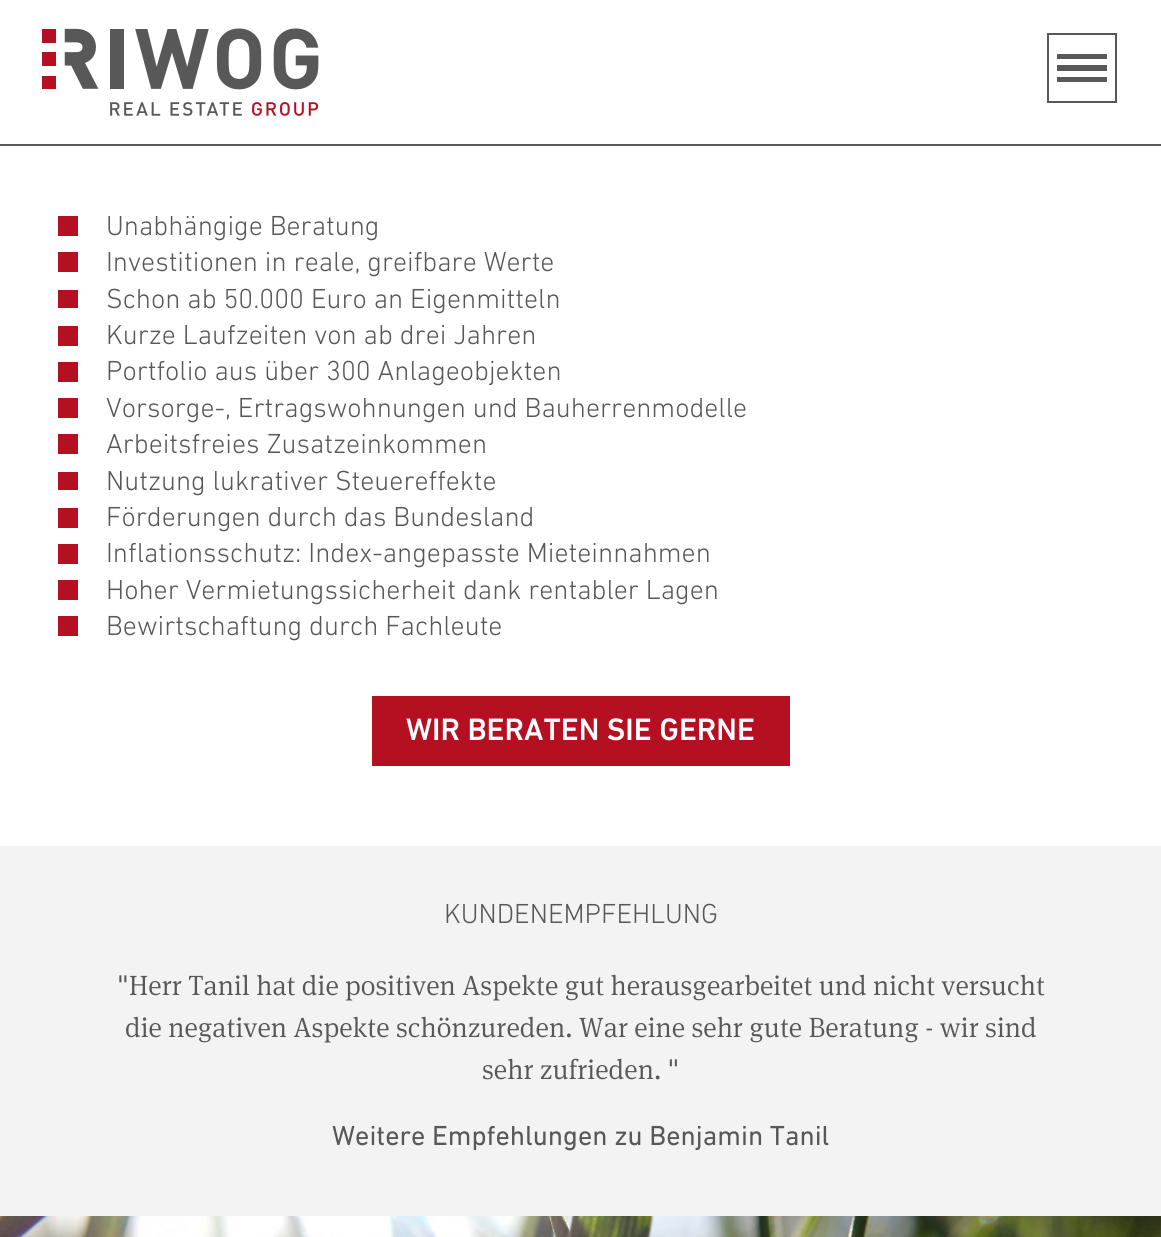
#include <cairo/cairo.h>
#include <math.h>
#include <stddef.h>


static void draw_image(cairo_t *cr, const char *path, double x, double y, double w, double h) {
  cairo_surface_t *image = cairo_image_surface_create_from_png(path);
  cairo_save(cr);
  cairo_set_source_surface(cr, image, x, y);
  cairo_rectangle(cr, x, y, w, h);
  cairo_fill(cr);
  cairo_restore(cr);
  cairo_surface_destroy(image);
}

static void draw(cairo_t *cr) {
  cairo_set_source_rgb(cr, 1, 1, 1);
  cairo_paint(cr);
  cairo_set_source_rgb(cr, 88 / 255.0, 88 / 255.0, 88 / 255.0);
  cairo_rectangle(cr, 0, 144, 1161, 2);
  cairo_fill(cr);
  draw_image(cr, "images/1.png", 42, 28, 277, 88);
  cairo_rectangle(cr, 1048, 34, 68, 68);
  cairo_set_source_rgb(cr, 88 / 255.0, 88 / 255.0, 90 / 255.0);
  cairo_stroke(cr);
  cairo_rectangle(cr, 1057, 65, 50, 6);
  cairo_fill(cr);
  cairo_rectangle(cr, 1057, 77, 50, 5);
  cairo_fill(cr);
  cairo_rectangle(cr, 1057, 54, 50, 5);
  cairo_fill(cr);
  cairo_set_source_rgb(cr, 180 / 255.0, 16 / 255.0, 34 / 255.0);
  cairo_rectangle(cr, 58, 216, 20, 20);
  cairo_fill(cr);
  cairo_rectangle(cr, 58, 252, 20, 20);
  cairo_fill(cr);
  cairo_rectangle(cr, 58, 290, 20, 18);
  cairo_fill(cr);
  cairo_rectangle(cr, 58, 326, 20, 20);
  cairo_fill(cr);
  cairo_rectangle(cr, 58, 362, 20, 20);
  cairo_fill(cr);
  cairo_rectangle(cr, 58, 398, 20, 20);
  cairo_fill(cr);
  cairo_rectangle(cr, 58, 434, 20, 20);
  cairo_fill(cr);
  cairo_rectangle(cr, 58, 472, 20, 18);
  cairo_fill(cr);
  cairo_rectangle(cr, 58, 508, 20, 20);
  cairo_fill(cr);
  cairo_rectangle(cr, 58, 544, 20, 20);
  cairo_fill(cr);
  cairo_rectangle(cr, 58, 580, 20, 20);
  cairo_fill(cr);
  cairo_rectangle(cr, 58, 616, 20, 20);
  cairo_fill(cr);
  cairo_rectangle(cr, 372, 696, 418, 70);
  cairo_fill(cr);
  cairo_set_source_rgb(cr, 243 / 255.0, 243 / 255.0, 243 / 255.0);
  cairo_rectangle(cr, 0, 846, 1161, 370);
  cairo_fill(cr);
  draw_image(cr, "images/2.png", 0, 1216, 1161, 21);
  cairo_select_font_face(cr, "DIN Next Light", CAIRO_FONT_SLANT_NORMAL, CAIRO_FONT_WEIGHT_NORMAL);
  cairo_set_font_size(cr, 28);
  cairo_set_source_rgb(cr, 88 / 255.0, 88 / 255.0, 88 / 255.0);
  cairo_move_to(cr, 106, 235);
  cairo_show_text(cr, "Unabhängige Beratung");
  cairo_move_to(cr, 106, 271);
  cairo_show_text(cr, "Investitionen in reale, greifbare Werte");
  cairo_move_to(cr, 106, 308);
  cairo_show_text(cr, "Schon ab 50.000 Euro an Eigenmitteln");
  cairo_move_to(cr, 106, 344);
  cairo_show_text(cr, "Kurze Laufzeiten von ab drei Jahren");
  cairo_move_to(cr, 106, 380);
  cairo_show_text(cr, "Portfolio aus über 300 Anlageobjekten");
  cairo_move_to(cr, 106, 417);
  cairo_show_text(cr, "Vorsorge-, Ertragswohnungen und Bauherrenmodelle");
  cairo_move_to(cr, 106, 453);
  cairo_show_text(cr, "Arbeitsfreies Zusatzeinkommen");
  cairo_move_to(cr, 106, 490);
  cairo_show_text(cr, "Nutzung lukrativer Steuereffekte");
  cairo_move_to(cr, 106, 526);
  cairo_show_text(cr, "Förderungen durch das Bundesland");
  cairo_move_to(cr, 106, 562);
  cairo_show_text(cr, "Inflationsschutz: Index-angepasste Mieteinnahmen");
  cairo_move_to(cr, 106, 599);
  cairo_show_text(cr, "Hoher Vermietungssicherheit dank rentabler Lagen");
  cairo_move_to(cr, 106, 635);
  cairo_show_text(cr, "Bewirtschaftung durch Fachleute");
  cairo_select_font_face(cr, "DIN Next Medium", CAIRO_FONT_SLANT_NORMAL, CAIRO_FONT_WEIGHT_NORMAL);
  cairo_set_font_size(cr, 31.5);
  cairo_set_source_rgb(cr, 1, 1, 1);
  cairo_move_to(cr, 406, 740);
  cairo_show_text(cr, "WIR BERATEN SIE GERNE");
  cairo_select_font_face(cr, "DIN Next Light", CAIRO_FONT_SLANT_NORMAL, CAIRO_FONT_WEIGHT_NORMAL);
  cairo_set_font_size(cr, 28);
  cairo_set_source_rgb(cr, 88 / 255.0, 88 / 255.0, 88 / 255.0);
  cairo_move_to(cr, 444, 923);
  cairo_show_text(cr, "KUNDENEMPFEHLUNG");
  cairo_select_font_face(cr, "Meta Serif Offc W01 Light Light", CAIRO_FONT_SLANT_NORMAL, CAIRO_FONT_WEIGHT_NORMAL);
  cairo_move_to(cr, 117, 995);
  cairo_show_text(cr, "\"Herr Tanil hat die positiven Aspekte gut herausgearbeitet und nicht versucht");
  cairo_move_to(cr, 125, 1037);
  cairo_show_text(cr, "die negativen Aspekte schönzureden. War eine sehr gute Beratung - wir sind");
  cairo_move_to(cr, 482, 1079);
  cairo_show_text(cr, "sehr zufrieden. \"");
  cairo_select_font_face(cr, "DIN Next", CAIRO_FONT_SLANT_NORMAL, CAIRO_FONT_WEIGHT_NORMAL);
  cairo_move_to(cr, 332, 1145);
  cairo_show_text(cr, "Weitere Empfehlungen zu Benjamin Tanil");
}

int main(void) {
  cairo_surface_t *surface = cairo_image_surface_create(CAIRO_FORMAT_RGB24, 1161, 1237);
  cairo_t *cr = cairo_create(surface);
  cairo_font_options_t *options = cairo_font_options_create();
  cairo_font_options_set_hint_metrics(options, CAIRO_HINT_METRICS_OFF);
  cairo_font_options_set_hint_style(options, CAIRO_HINT_STYLE_NONE);
  cairo_set_font_options(cr, options);
  cairo_set_miter_limit(cr, 4);
  draw(cr);
  cairo_surface_write_to_png(surface, "out.png");
  cairo_font_options_destroy(options);
  cairo_destroy(cr);
  cairo_surface_destroy(surface);
  return 0;
}
